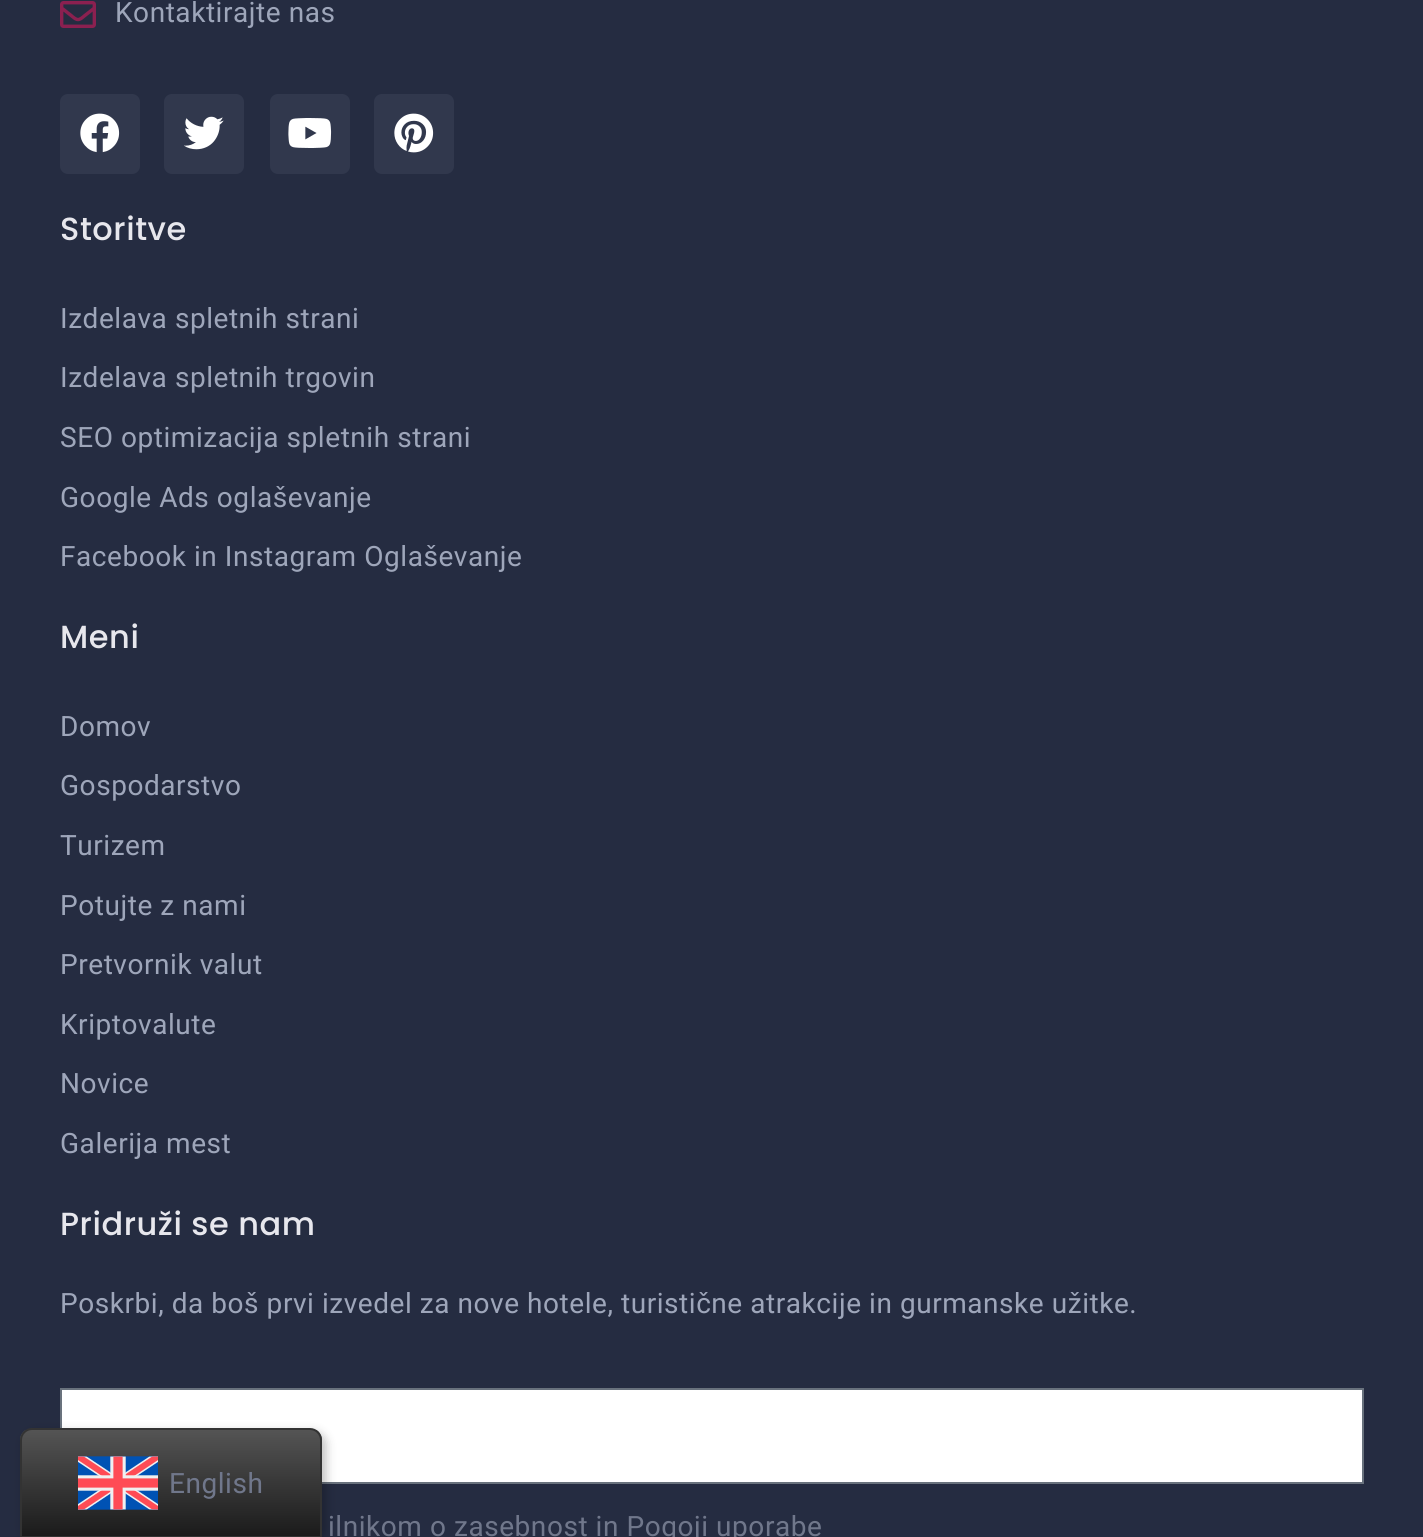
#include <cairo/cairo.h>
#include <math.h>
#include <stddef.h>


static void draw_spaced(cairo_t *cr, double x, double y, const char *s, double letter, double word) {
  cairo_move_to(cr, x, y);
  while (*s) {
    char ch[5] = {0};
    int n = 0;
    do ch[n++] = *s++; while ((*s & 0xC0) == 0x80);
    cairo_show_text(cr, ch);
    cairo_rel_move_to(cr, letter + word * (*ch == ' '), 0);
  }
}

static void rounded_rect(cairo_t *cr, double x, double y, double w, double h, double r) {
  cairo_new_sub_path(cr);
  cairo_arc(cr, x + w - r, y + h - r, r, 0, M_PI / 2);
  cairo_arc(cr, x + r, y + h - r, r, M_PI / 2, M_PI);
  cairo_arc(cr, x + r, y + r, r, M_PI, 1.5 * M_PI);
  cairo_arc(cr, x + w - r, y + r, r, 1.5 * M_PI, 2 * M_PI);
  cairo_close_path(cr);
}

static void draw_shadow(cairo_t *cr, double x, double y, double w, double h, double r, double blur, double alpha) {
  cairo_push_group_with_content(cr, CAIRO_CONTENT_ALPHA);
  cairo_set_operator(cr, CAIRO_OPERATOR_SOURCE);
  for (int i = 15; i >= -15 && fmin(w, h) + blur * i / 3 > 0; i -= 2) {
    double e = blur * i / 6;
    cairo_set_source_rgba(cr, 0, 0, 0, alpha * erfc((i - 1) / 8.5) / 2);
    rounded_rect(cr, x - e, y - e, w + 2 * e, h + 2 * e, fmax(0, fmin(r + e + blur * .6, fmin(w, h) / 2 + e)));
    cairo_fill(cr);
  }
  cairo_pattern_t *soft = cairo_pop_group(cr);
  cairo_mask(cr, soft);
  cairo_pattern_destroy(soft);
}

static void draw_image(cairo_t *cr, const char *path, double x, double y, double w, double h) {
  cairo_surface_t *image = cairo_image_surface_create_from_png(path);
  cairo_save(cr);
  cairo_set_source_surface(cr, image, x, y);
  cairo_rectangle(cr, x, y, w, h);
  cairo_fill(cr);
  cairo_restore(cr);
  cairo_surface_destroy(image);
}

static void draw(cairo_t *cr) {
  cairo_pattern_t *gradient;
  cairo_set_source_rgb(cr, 37 / 255.0, 44 / 255.0, 65 / 255.0);
  cairo_paint(cr);
  draw_image(cr, "images/1.png", 60, 1, 36, 27);
  cairo_set_source_rgb(cr, 49 / 255.0, 56 / 255.0, 77 / 255.0);
  rounded_rect(cr, 60, 94, 80, 80, 8);
  cairo_fill(cr);
  draw_image(cr, "images/2.png", 80, 113, 40, 40);
  rounded_rect(cr, 164, 94, 80, 80, 8);
  cairo_fill(cr);
  draw_image(cr, "images/3.png", 184, 116, 40, 34);
  rounded_rect(cr, 270, 94, 80, 80, 8);
  cairo_fill(cr);
  draw_image(cr, "images/4.png", 288, 118, 44, 30);
  rounded_rect(cr, 374, 94, 80, 80, 8);
  cairo_fill(cr);
  draw_image(cr, "images/5.png", 394, 113, 40, 40);
  cairo_set_source_rgb(cr, 1, 1, 1);
  cairo_rectangle(cr, 61, 1389, 1302, 94);
  cairo_fill_preserve(cr);
  cairo_set_source_rgb(cr, 105 / 255.0, 114 / 255.0, 125 / 255.0);
  cairo_stroke(cr);
  cairo_set_source_rgb(cr, 0, 0, 0);
  draw_shadow(cr, 24, 1432, 302, 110, 12, 5, 0.25);
  cairo_save(cr);
  cairo_new_path(cr);
  cairo_move_to(cr, 32, 1428);
  cairo_line_to(cr, 310, 1428);
  cairo_curve_to(cr, 316.5, 1428, 322, 1433.5, 322, 1440);
  cairo_line_to(cr, 322, 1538);
  cairo_line_to(cr, 20, 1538);
  cairo_line_to(cr, 20, 1440);
  cairo_curve_to(cr, 20, 1433.5, 25.5, 1428, 32, 1428);
  cairo_close_path(cr);
  cairo_clip(cr);
  gradient = cairo_pattern_create_linear(171, 1536, 171, 1430);
  cairo_pattern_add_color_stop_rgba(gradient, 0, 27 / 255.0, 27 / 255.0, 27 / 255.0, 1);
  cairo_pattern_add_color_stop_rgba(gradient, 1, 84 / 255.0, 84 / 255.0, 84 / 255.0, 1);
  cairo_set_source(cr, gradient);
  cairo_pattern_destroy(gradient);
  cairo_rectangle(cr, 20, 1430, 302, 106);
  cairo_fill(cr);
  cairo_restore(cr);
  cairo_new_path(cr);
  cairo_move_to(cr, 32, 1429);
  cairo_line_to(cr, 310, 1429);
  cairo_curve_to(cr, 316, 1429, 321, 1434, 321, 1440);
  cairo_line_to(cr, 321, 1537);
  cairo_line_to(cr, 21, 1537);
  cairo_line_to(cr, 21, 1440);
  cairo_curve_to(cr, 21, 1434, 26, 1429, 32, 1429);
  cairo_close_path(cr);
  cairo_set_source_rgb(cr, 51 / 255.0, 51 / 255.0, 51 / 255.0);
  cairo_stroke(cr);
  draw_image(cr, "images/6.png", 78, 1456, 80, 54);
  cairo_select_font_face(cr, "Roboto", CAIRO_FONT_SLANT_NORMAL, CAIRO_FONT_WEIGHT_NORMAL);
  cairo_set_font_size(cr, 28);
  cairo_set_source_rgb(cr, 158 / 255.0, 166 / 255.0, 186 / 255.0);
  draw_spaced(cr, 115, 22, "Kontaktirajte nas", 0.55, 0);
  cairo_select_font_face(cr, "Poppins Medium", CAIRO_FONT_SLANT_NORMAL, CAIRO_FONT_WEIGHT_NORMAL);
  cairo_set_font_size(cr, 32);
  cairo_set_source_rgb(cr, 231 / 255.0, 231 / 255.0, 237 / 255.0);
  draw_spaced(cr, 60, 240, "Storitve", 0.55, 0);
  cairo_select_font_face(cr, "Roboto", CAIRO_FONT_SLANT_NORMAL, CAIRO_FONT_WEIGHT_NORMAL);
  cairo_set_font_size(cr, 28);
  cairo_set_source_rgb(cr, 158 / 255.0, 166 / 255.0, 186 / 255.0);
  draw_spaced(cr, 60, 328, "Izdelava spletnih strani", 0.55, 0);
  draw_spaced(cr, 60, 387, "Izdelava spletnih trgovin", 0.55, 0);
  draw_spaced(cr, 60, 447, "SEO optimizacija spletnih strani", 0.55, 0);
  draw_spaced(cr, 60, 507, "Google Ads oglaševanje", 0.55, 0);
  draw_spaced(cr, 60, 566, "Facebook in Instagram Oglaševanje", 0.55, 0);
  cairo_select_font_face(cr, "Poppins Medium", CAIRO_FONT_SLANT_NORMAL, CAIRO_FONT_WEIGHT_NORMAL);
  cairo_set_font_size(cr, 32);
  cairo_set_source_rgb(cr, 231 / 255.0, 231 / 255.0, 237 / 255.0);
  draw_spaced(cr, 60, 648, "Meni", 0.55, 0);
  cairo_select_font_face(cr, "Roboto", CAIRO_FONT_SLANT_NORMAL, CAIRO_FONT_WEIGHT_NORMAL);
  cairo_set_font_size(cr, 28);
  cairo_set_source_rgb(cr, 158 / 255.0, 166 / 255.0, 186 / 255.0);
  draw_spaced(cr, 60, 736, "Domov", 0.55, 0);
  draw_spaced(cr, 60, 795, "Gospodarstvo", 0.55, 0);
  draw_spaced(cr, 60, 855, "Turizem", 0.55, 0);
  draw_spaced(cr, 60, 915, "Potujte z nami", 0.55, 0);
  draw_spaced(cr, 60, 974, "Pretvornik valut", 0.55, 0);
  draw_spaced(cr, 60, 1034, "Kriptovalute", 0.55, 0);
  draw_spaced(cr, 60, 1093, "Novice", 0.55, 0);
  draw_spaced(cr, 60, 1153, "Galerija mest", 0.55, 0);
  cairo_select_font_face(cr, "Poppins Medium", CAIRO_FONT_SLANT_NORMAL, CAIRO_FONT_WEIGHT_NORMAL);
  cairo_set_font_size(cr, 32);
  cairo_set_source_rgb(cr, 231 / 255.0, 231 / 255.0, 237 / 255.0);
  draw_spaced(cr, 60, 1235, "Pridruži se nam", 0.55, 0);
  cairo_select_font_face(cr, "Roboto", CAIRO_FONT_SLANT_NORMAL, CAIRO_FONT_WEIGHT_NORMAL);
  cairo_set_font_size(cr, 28);
  cairo_set_source_rgb(cr, 158 / 255.0, 166 / 255.0, 186 / 255.0);
  draw_spaced(cr, 60, 1313, "Poskrbi, da boš prvi izvedel za nove hotele, turistične atrakcije in gurmanske užitke.", 0.55, 0);
  cairo_set_source_rgb(cr, 112 / 255.0, 119 / 255.0, 139 / 255.0);
  draw_spaced(cr, 328, 1536, "ilnikom o zasebnost in Pogoji uporabe", 0.55, 0);
  draw_spaced(cr, 169, 1493, "English", 0.55, 0);
}

int main(void) {
  cairo_surface_t *surface = cairo_image_surface_create(CAIRO_FORMAT_RGB24, 1423, 1537);
  cairo_t *cr = cairo_create(surface);
  cairo_font_options_t *options = cairo_font_options_create();
  cairo_font_options_set_hint_metrics(options, CAIRO_HINT_METRICS_OFF);
  cairo_font_options_set_hint_style(options, CAIRO_HINT_STYLE_NONE);
  cairo_set_font_options(cr, options);
  cairo_set_miter_limit(cr, 4);
  draw(cr);
  cairo_surface_write_to_png(surface, "out.png");
  cairo_font_options_destroy(options);
  cairo_destroy(cr);
  cairo_surface_destroy(surface);
  return 0;
}
